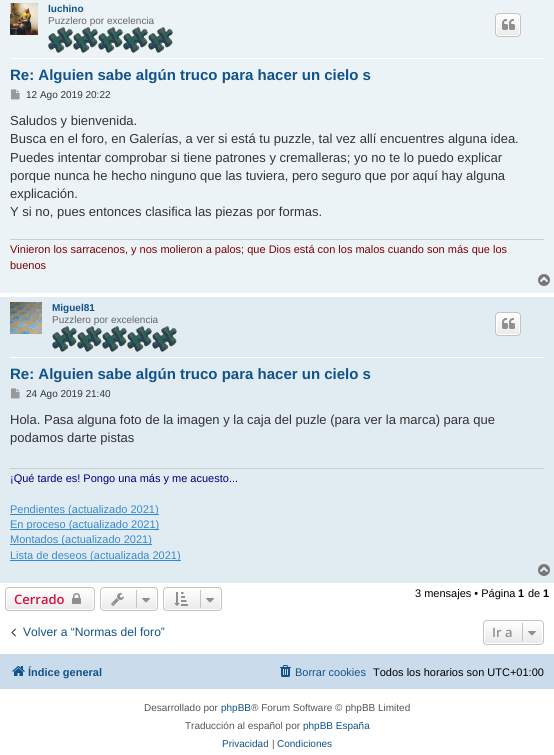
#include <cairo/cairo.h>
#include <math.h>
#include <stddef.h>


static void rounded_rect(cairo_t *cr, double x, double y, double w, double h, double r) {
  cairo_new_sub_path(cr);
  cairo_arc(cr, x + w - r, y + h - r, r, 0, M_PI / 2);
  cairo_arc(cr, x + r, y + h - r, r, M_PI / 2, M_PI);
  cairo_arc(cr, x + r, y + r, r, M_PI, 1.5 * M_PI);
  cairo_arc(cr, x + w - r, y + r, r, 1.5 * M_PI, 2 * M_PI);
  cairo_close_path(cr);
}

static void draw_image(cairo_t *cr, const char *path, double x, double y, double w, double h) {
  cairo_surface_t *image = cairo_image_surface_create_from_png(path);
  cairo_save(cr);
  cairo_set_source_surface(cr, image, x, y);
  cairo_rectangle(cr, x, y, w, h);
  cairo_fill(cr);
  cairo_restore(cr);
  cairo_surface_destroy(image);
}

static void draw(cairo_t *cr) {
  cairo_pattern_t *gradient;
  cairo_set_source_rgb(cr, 1, 1, 1);
  cairo_paint(cr);
  cairo_set_source_rgb(cr, 236 / 255.0, 243 / 255.0, 247 / 255.0);
  cairo_rectangle(cr, 0, 0, 554, 293);
  cairo_fill(cr);
  cairo_set_source_rgb(cr, 1, 1, 1);
  cairo_rectangle(cr, 10, 58, 534, 1);
  cairo_fill(cr);
  draw_image(cr, "images/1.png", 10, 3, 28, 32);
  draw_image(cr, "images/2.png", 48, 27, 125, 26);
  cairo_save(cr);
  rounded_rect(cr, 495, 13, 26, 24, 4);
  cairo_clip(cr);
  gradient = cairo_pattern_create_linear(508, 14, 508, 36);
  cairo_pattern_add_color_stop_rgba(gradient, 0, 1, 1, 1, 1);
  cairo_pattern_add_color_stop_rgba(gradient, 1, 233 / 255.0, 233 / 255.0, 233 / 255.0, 1);
  cairo_set_source(cr, gradient);
  cairo_pattern_destroy(gradient);
  cairo_rectangle(cr, 495, 14, 26, 22);
  cairo_fill(cr);
  cairo_restore(cr);
  rounded_rect(cr, 496.5, 14.5, 23, 21, 2.5);
  cairo_set_line_width(cr, 1);
  cairo_stroke(cr);
  rounded_rect(cr, 495.5, 13.5, 25, 23, 3.5);
  cairo_set_source_rgb(cr, 199 / 255.0, 195 / 255.0, 191 / 255.0);
  cairo_stroke(cr);
  draw_image(cr, "images/3.png", 502, 19, 13, 11);
  draw_image(cr, "images/4.png", 11, 89, 9, 11);
  cairo_set_source_rgb(cr, 204 / 255.0, 204 / 255.0, 204 / 255.0);
  cairo_rectangle(cr, 10, 239, 534, 1);
  cairo_fill(cr);
  draw_image(cr, "images/5.png", 538, 274, 12, 12);
  cairo_set_source_rgb(cr, 225 / 255.0, 235 / 255.0, 242 / 255.0);
  cairo_rectangle(cr, 0, 297, 554, 286);
  cairo_fill(cr);
  cairo_set_source_rgb(cr, 1, 1, 1);
  cairo_rectangle(cr, 10, 357, 534, 1);
  cairo_fill(cr);
  draw_image(cr, "images/6.png", 10, 302, 32, 32);
  draw_image(cr, "images/7.png", 52, 326, 125, 26);
  cairo_save(cr);
  rounded_rect(cr, 495, 312, 26, 24, 4);
  cairo_clip(cr);
  gradient = cairo_pattern_create_linear(508, 313, 508, 335);
  cairo_pattern_add_color_stop_rgba(gradient, 0, 1, 1, 1, 1);
  cairo_pattern_add_color_stop_rgba(gradient, 1, 233 / 255.0, 233 / 255.0, 233 / 255.0, 1);
  cairo_set_source(cr, gradient);
  cairo_pattern_destroy(gradient);
  cairo_rectangle(cr, 495, 313, 26, 22);
  cairo_fill(cr);
  cairo_restore(cr);
  rounded_rect(cr, 496.5, 313.5, 23, 21, 2.5);
  cairo_stroke(cr);
  rounded_rect(cr, 495.5, 312.5, 25, 23, 3.5);
  cairo_set_source_rgb(cr, 199 / 255.0, 195 / 255.0, 191 / 255.0);
  cairo_stroke(cr);
  draw_image(cr, "images/3.png", 502, 318, 13, 11);
  draw_image(cr, "images/8.png", 11, 388, 9, 11);
  cairo_set_source_rgb(cr, 204 / 255.0, 204 / 255.0, 204 / 255.0);
  cairo_rectangle(cr, 10, 468, 534, 1);
  cairo_fill(cr);
  cairo_set_source_rgb(cr, 54 / 255.0, 138 / 255.0, 210 / 255.0);
  cairo_rectangle(cr, 10, 514, 149, 1);
  cairo_fill(cr);
  cairo_rectangle(cr, 10, 529, 149, 1);
  cairo_fill(cr);
  cairo_rectangle(cr, 10, 544, 142, 1);
  cairo_fill(cr);
  cairo_rectangle(cr, 10, 560, 171, 1);
  cairo_fill(cr);
  draw_image(cr, "images/9.png", 538, 564, 12, 12);
  cairo_save(cr);
  rounded_rect(cr, 5, 587, 90, 24, 4);
  cairo_clip(cr);
  gradient = cairo_pattern_create_linear(50, 588, 50, 610);
  cairo_pattern_add_color_stop_rgba(gradient, 0, 1, 1, 1, 1);
  cairo_pattern_add_color_stop_rgba(gradient, 1, 233 / 255.0, 233 / 255.0, 233 / 255.0, 1);
  cairo_set_source(cr, gradient);
  cairo_pattern_destroy(gradient);
  cairo_rectangle(cr, 5, 588, 90, 22);
  cairo_fill(cr);
  cairo_restore(cr);
  rounded_rect(cr, 6.5, 588.5, 87, 21, 2.5);
  cairo_set_source_rgb(cr, 1, 1, 1);
  cairo_stroke(cr);
  rounded_rect(cr, 5.5, 587.5, 89, 23, 3.5);
  cairo_set_source_rgb(cr, 199 / 255.0, 195 / 255.0, 191 / 255.0);
  cairo_stroke(cr);
  draw_image(cr, "images/10.png", 72, 593, 9, 11);
  cairo_save(cr);
  rounded_rect(cr, 100, 587, 58, 24, 4);
  cairo_clip(cr);
  gradient = cairo_pattern_create_linear(129, 588, 129, 610);
  cairo_pattern_add_color_stop_rgba(gradient, 0, 1, 1, 1, 1);
  cairo_pattern_add_color_stop_rgba(gradient, 1, 233 / 255.0, 233 / 255.0, 233 / 255.0, 1);
  cairo_set_source(cr, gradient);
  cairo_pattern_destroy(gradient);
  cairo_rectangle(cr, 100, 588, 58, 22);
  cairo_fill(cr);
  cairo_restore(cr);
  rounded_rect(cr, 101.5, 588.5, 55, 21, 2.5);
  cairo_set_source_rgb(cr, 1, 1, 1);
  cairo_stroke(cr);
  rounded_rect(cr, 100.5, 587.5, 57, 23, 3.5);
  cairo_set_source_rgb(cr, 199 / 255.0, 195 / 255.0, 191 / 255.0);
  cairo_stroke(cr);
  draw_image(cr, "images/11.png", 111, 593, 13, 13);
  cairo_rectangle(cr, 136, 590, 1, 18);
  cairo_fill(cr);
  draw_image(cr, "images/12.png", 142, 598, 8, 5);
  cairo_save(cr);
  rounded_rect(cr, 163, 587, 59, 24, 4);
  cairo_clip(cr);
  gradient = cairo_pattern_create_linear(193, 588, 193, 610);
  cairo_pattern_add_color_stop_rgba(gradient, 0, 1, 1, 1, 1);
  cairo_pattern_add_color_stop_rgba(gradient, 1, 233 / 255.0, 233 / 255.0, 233 / 255.0, 1);
  cairo_set_source(cr, gradient);
  cairo_pattern_destroy(gradient);
  cairo_rectangle(cr, 163, 588, 59, 22);
  cairo_fill(cr);
  cairo_restore(cr);
  rounded_rect(cr, 164.5, 588.5, 56, 21, 2.5);
  cairo_set_source_rgb(cr, 1, 1, 1);
  cairo_stroke(cr);
  rounded_rect(cr, 163.5, 587.5, 58, 23, 3.5);
  cairo_set_source_rgb(cr, 199 / 255.0, 195 / 255.0, 191 / 255.0);
  cairo_stroke(cr);
  draw_image(cr, "images/13.png", 174, 592, 14, 14);
  cairo_rectangle(cr, 200, 590, 1, 18);
  cairo_fill(cr);
  draw_image(cr, "images/12.png", 206, 598, 8, 5);
  draw_image(cr, "images/14.png", 11, 628, 5, 9);
  cairo_save(cr);
  rounded_rect(cr, 483, 620, 61, 25, 4);
  cairo_clip(cr);
  gradient = cairo_pattern_create_linear(514, 621, 514, 644);
  cairo_pattern_add_color_stop_rgba(gradient, 0, 1, 1, 1, 1);
  cairo_pattern_add_color_stop_rgba(gradient, 1, 233 / 255.0, 233 / 255.0, 233 / 255.0, 1);
  cairo_set_source(cr, gradient);
  cairo_pattern_destroy(gradient);
  cairo_rectangle(cr, 483, 621, 61, 23);
  cairo_fill(cr);
  cairo_restore(cr);
  rounded_rect(cr, 484.5, 621.5, 58, 22, 2.5);
  cairo_set_source_rgb(cr, 1, 1, 1);
  cairo_stroke(cr);
  rounded_rect(cr, 483.5, 620.5, 60, 24, 3.5);
  cairo_set_source_rgb(cr, 199 / 255.0, 195 / 255.0, 191 / 255.0);
  cairo_stroke(cr);
  cairo_rectangle(cr, 522, 623, 1, 18);
  cairo_fill(cr);
  draw_image(cr, "images/12.png", 528, 631, 8, 5);
  cairo_set_source_rgb(cr, 202 / 255.0, 220 / 255.0, 235 / 255.0);
  cairo_rectangle(cr, 0, 654, 554, 35);
  cairo_fill(cr);
  draw_image(cr, "images/15.png", 12, 666, 13, 10);
  draw_image(cr, "images/16.png", 280, 665, 11, 12);
  cairo_select_font_face(cr, "Liberation Sans", CAIRO_FONT_SLANT_NORMAL, CAIRO_FONT_WEIGHT_BOLD);
  cairo_set_font_size(cr, 10);
  cairo_set_source_rgb(cr, 16 / 255.0, 82 / 255.0, 137 / 255.0);
  cairo_move_to(cr, 48, 12);
  cairo_show_text(cr, "luchino");
  cairo_select_font_face(cr, "Liberation Sans", CAIRO_FONT_SLANT_NORMAL, CAIRO_FONT_WEIGHT_NORMAL);
  cairo_set_source_rgb(cr, 102 / 255.0, 102 / 255.0, 102 / 255.0);
  cairo_move_to(cr, 48, 24);
  cairo_show_text(cr, "Puzzlero por excelencia");
  cairo_select_font_face(cr, "Liberation Sans", CAIRO_FONT_SLANT_NORMAL, CAIRO_FONT_WEIGHT_BOLD);
  cairo_set_font_size(cr, 15);
  cairo_set_source_rgb(cr, 16 / 255.0, 82 / 255.0, 137 / 255.0);
  cairo_move_to(cr, 10, 80);
  cairo_show_text(cr, "Re: Alguien sabe algún truco para hacer un cielo s");
  cairo_select_font_face(cr, "Liberation Sans", CAIRO_FONT_SLANT_NORMAL, CAIRO_FONT_WEIGHT_NORMAL);
  cairo_set_font_size(cr, 10);
  cairo_set_source_rgb(cr, 51 / 255.0, 51 / 255.0, 51 / 255.0);
  cairo_move_to(cr, 26, 98);
  cairo_show_text(cr, "12 Ago 2019 20:22");
  cairo_set_font_size(cr, 13);
  cairo_move_to(cr, 10, 125);
  cairo_show_text(cr, "Saludos y bienvenida.");
  cairo_move_to(cr, 10, 143);
  cairo_show_text(cr, "Busca en el foro, en Galerías, a ver si está tu puzzle, tal vez allí encuentres alguna idea.");
  cairo_move_to(cr, 10, 162);
  cairo_show_text(cr, "Puedes intentar comprobar si tiene patrones y cremalleras; yo no te lo puedo explicar");
  cairo_move_to(cr, 10, 180);
  cairo_show_text(cr, "porque nunca he hecho ninguno que las tuviera, pero seguro que por aquí hay alguna");
  cairo_move_to(cr, 10, 198);
  cairo_show_text(cr, "explicación.");
  cairo_move_to(cr, 10, 216);
  cairo_show_text(cr, "Y si no, pues entonces clasifica las piezas por formas.");
  cairo_set_font_size(cr, 11);
  cairo_set_source_rgb(cr, 128 / 255.0, 0, 0);
  cairo_move_to(cr, 10, 253);
  cairo_show_text(cr, "Vinieron los sarracenos, y nos molieron a palos; que Dios está con los malos cuando son más que los");
  cairo_move_to(cr, 10, 269);
  cairo_show_text(cr, "buenos");
  cairo_select_font_face(cr, "Liberation Sans", CAIRO_FONT_SLANT_NORMAL, CAIRO_FONT_WEIGHT_BOLD);
  cairo_set_font_size(cr, 10);
  cairo_set_source_rgb(cr, 16 / 255.0, 82 / 255.0, 137 / 255.0);
  cairo_move_to(cr, 52, 311);
  cairo_show_text(cr, "Miguel81");
  cairo_select_font_face(cr, "Liberation Sans", CAIRO_FONT_SLANT_NORMAL, CAIRO_FONT_WEIGHT_NORMAL);
  cairo_set_source_rgb(cr, 102 / 255.0, 102 / 255.0, 102 / 255.0);
  cairo_move_to(cr, 52, 323);
  cairo_show_text(cr, "Puzzlero por excelencia");
  cairo_select_font_face(cr, "Liberation Sans", CAIRO_FONT_SLANT_NORMAL, CAIRO_FONT_WEIGHT_BOLD);
  cairo_set_font_size(cr, 15);
  cairo_set_source_rgb(cr, 16 / 255.0, 82 / 255.0, 137 / 255.0);
  cairo_move_to(cr, 10, 379);
  cairo_show_text(cr, "Re: Alguien sabe algún truco para hacer un cielo s");
  cairo_select_font_face(cr, "Liberation Sans", CAIRO_FONT_SLANT_NORMAL, CAIRO_FONT_WEIGHT_NORMAL);
  cairo_set_font_size(cr, 10);
  cairo_set_source_rgb(cr, 51 / 255.0, 51 / 255.0, 51 / 255.0);
  cairo_move_to(cr, 26, 397);
  cairo_show_text(cr, "24 Ago 2019 21:40");
  cairo_set_font_size(cr, 13);
  cairo_move_to(cr, 10, 424);
  cairo_show_text(cr, "Hola. Pasa alguna foto de la imagen y la caja del puzle (para ver la marca) para que");
  cairo_move_to(cr, 10, 442);
  cairo_show_text(cr, "podamos darte pistas");
  cairo_set_font_size(cr, 11);
  cairo_set_source_rgb(cr, 0, 0, 128 / 255.0);
  cairo_move_to(cr, 10, 482);
  cairo_show_text(cr, "¡Qué tarde es! Pongo una más y me acuesto...");
  cairo_set_source_rgb(cr, 54 / 255.0, 138 / 255.0, 210 / 255.0);
  cairo_move_to(cr, 10, 513);
  cairo_show_text(cr, "Pendientes (actualizado 2021)");
  cairo_move_to(cr, 10, 528);
  cairo_show_text(cr, "En proceso (actualizado 2021)");
  cairo_move_to(cr, 10, 543);
  cairo_show_text(cr, "Montados (actualizado 2021)");
  cairo_move_to(cr, 10, 559);
  cairo_show_text(cr, "Lista de deseos (actualizada 2021)");
  cairo_select_font_face(cr, "Open Sans SemiBold", CAIRO_FONT_SLANT_NORMAL, CAIRO_FONT_WEIGHT_NORMAL);
  cairo_set_font_size(cr, 13);
  cairo_set_source_rgb(cr, 211 / 255.0, 17 / 255.0, 65 / 255.0);
  cairo_move_to(cr, 14, 604);
  cairo_show_text(cr, "Cerrado");
  cairo_select_font_face(cr, "Liberation Sans", CAIRO_FONT_SLANT_NORMAL, CAIRO_FONT_WEIGHT_NORMAL);
  cairo_set_font_size(cr, 11);
  cairo_set_source_rgb(cr, 0, 0, 0);
  cairo_move_to(cr, 415, 597);
  cairo_show_text(cr, "3 mensajes • Página");
  cairo_select_font_face(cr, "Liberation Sans", CAIRO_FONT_SLANT_NORMAL, CAIRO_FONT_WEIGHT_BOLD);
  cairo_move_to(cr, 518, 597);
  cairo_show_text(cr, "1");
  cairo_select_font_face(cr, "Liberation Sans", CAIRO_FONT_SLANT_NORMAL, CAIRO_FONT_WEIGHT_NORMAL);
  cairo_move_to(cr, 528, 597);
  cairo_show_text(cr, "de");
  cairo_select_font_face(cr, "Liberation Sans", CAIRO_FONT_SLANT_NORMAL, CAIRO_FONT_WEIGHT_BOLD);
  cairo_move_to(cr, 543, 597);
  cairo_show_text(cr, "1");
  cairo_select_font_face(cr, "Liberation Sans", CAIRO_FONT_SLANT_NORMAL, CAIRO_FONT_WEIGHT_NORMAL);
  cairo_set_font_size(cr, 12.1);
  cairo_set_source_rgb(cr, 16 / 255.0, 82 / 255.0, 137 / 255.0);
  cairo_move_to(cr, 23, 636);
  cairo_show_text(cr, "Volver a “Normas del foro”");
  cairo_select_font_face(cr, "Open Sans SemiBold", CAIRO_FONT_SLANT_NORMAL, CAIRO_FONT_WEIGHT_NORMAL);
  cairo_set_font_size(cr, 13);
  cairo_set_source_rgb(cr, 143 / 255.0, 143 / 255.0, 143 / 255.0);
  cairo_move_to(cr, 492, 637);
  cairo_show_text(cr, "Ir a");
  cairo_select_font_face(cr, "Liberation Sans", CAIRO_FONT_SLANT_NORMAL, CAIRO_FONT_WEIGHT_BOLD);
  cairo_set_font_size(cr, 11);
  cairo_set_source_rgb(cr, 16 / 255.0, 82 / 255.0, 137 / 255.0);
  cairo_move_to(cr, 28, 676);
  cairo_show_text(cr, "Índice general");
  cairo_select_font_face(cr, "Liberation Sans", CAIRO_FONT_SLANT_NORMAL, CAIRO_FONT_WEIGHT_NORMAL);
  cairo_move_to(cr, 295, 676);
  cairo_show_text(cr, "Borrar cookies");
  cairo_set_source_rgb(cr, 0, 0, 0);
  cairo_move_to(cr, 373, 676);
  cairo_show_text(cr, "Todos los horarios son UTC+01:00");
  cairo_set_font_size(cr, 10);
  cairo_set_source_rgb(cr, 85 / 255.0, 85 / 255.0, 85 / 255.0);
  cairo_move_to(cr, 144, 711);
  cairo_show_text(cr, "Desarrollado por");
  cairo_set_source_rgb(cr, 16 / 255.0, 82 / 255.0, 137 / 255.0);
  cairo_move_to(cr, 221, 711);
  cairo_show_text(cr, "phpBB");
  cairo_set_source_rgb(cr, 85 / 255.0, 85 / 255.0, 85 / 255.0);
  cairo_move_to(cr, 251, 711);
  cairo_show_text(cr, "® Forum Software © phpBB Limited");
  cairo_move_to(cr, 185, 729);
  cairo_show_text(cr, "Traducción al español por");
  cairo_set_source_rgb(cr, 16 / 255.0, 82 / 255.0, 137 / 255.0);
  cairo_move_to(cr, 303, 729);
  cairo_show_text(cr, "phpBB España");
  cairo_move_to(cr, 222, 747);
  cairo_show_text(cr, "Privacidad");
  cairo_set_source_rgb(cr, 85 / 255.0, 85 / 255.0, 85 / 255.0);
  cairo_move_to(cr, 272, 747);
  cairo_show_text(cr, "|");
  cairo_set_source_rgb(cr, 16 / 255.0, 82 / 255.0, 137 / 255.0);
  cairo_move_to(cr, 277, 747);
  cairo_show_text(cr, "Condiciones");
}

int main(void) {
  cairo_surface_t *surface = cairo_image_surface_create(CAIRO_FORMAT_RGB24, 554, 755);
  cairo_t *cr = cairo_create(surface);
  cairo_font_options_t *options = cairo_font_options_create();
  cairo_font_options_set_hint_metrics(options, CAIRO_HINT_METRICS_OFF);
  cairo_font_options_set_hint_style(options, CAIRO_HINT_STYLE_NONE);
  cairo_set_font_options(cr, options);
  cairo_set_miter_limit(cr, 4);
  draw(cr);
  cairo_surface_write_to_png(surface, "out.png");
  cairo_font_options_destroy(options);
  cairo_destroy(cr);
  cairo_surface_destroy(surface);
  return 0;
}
